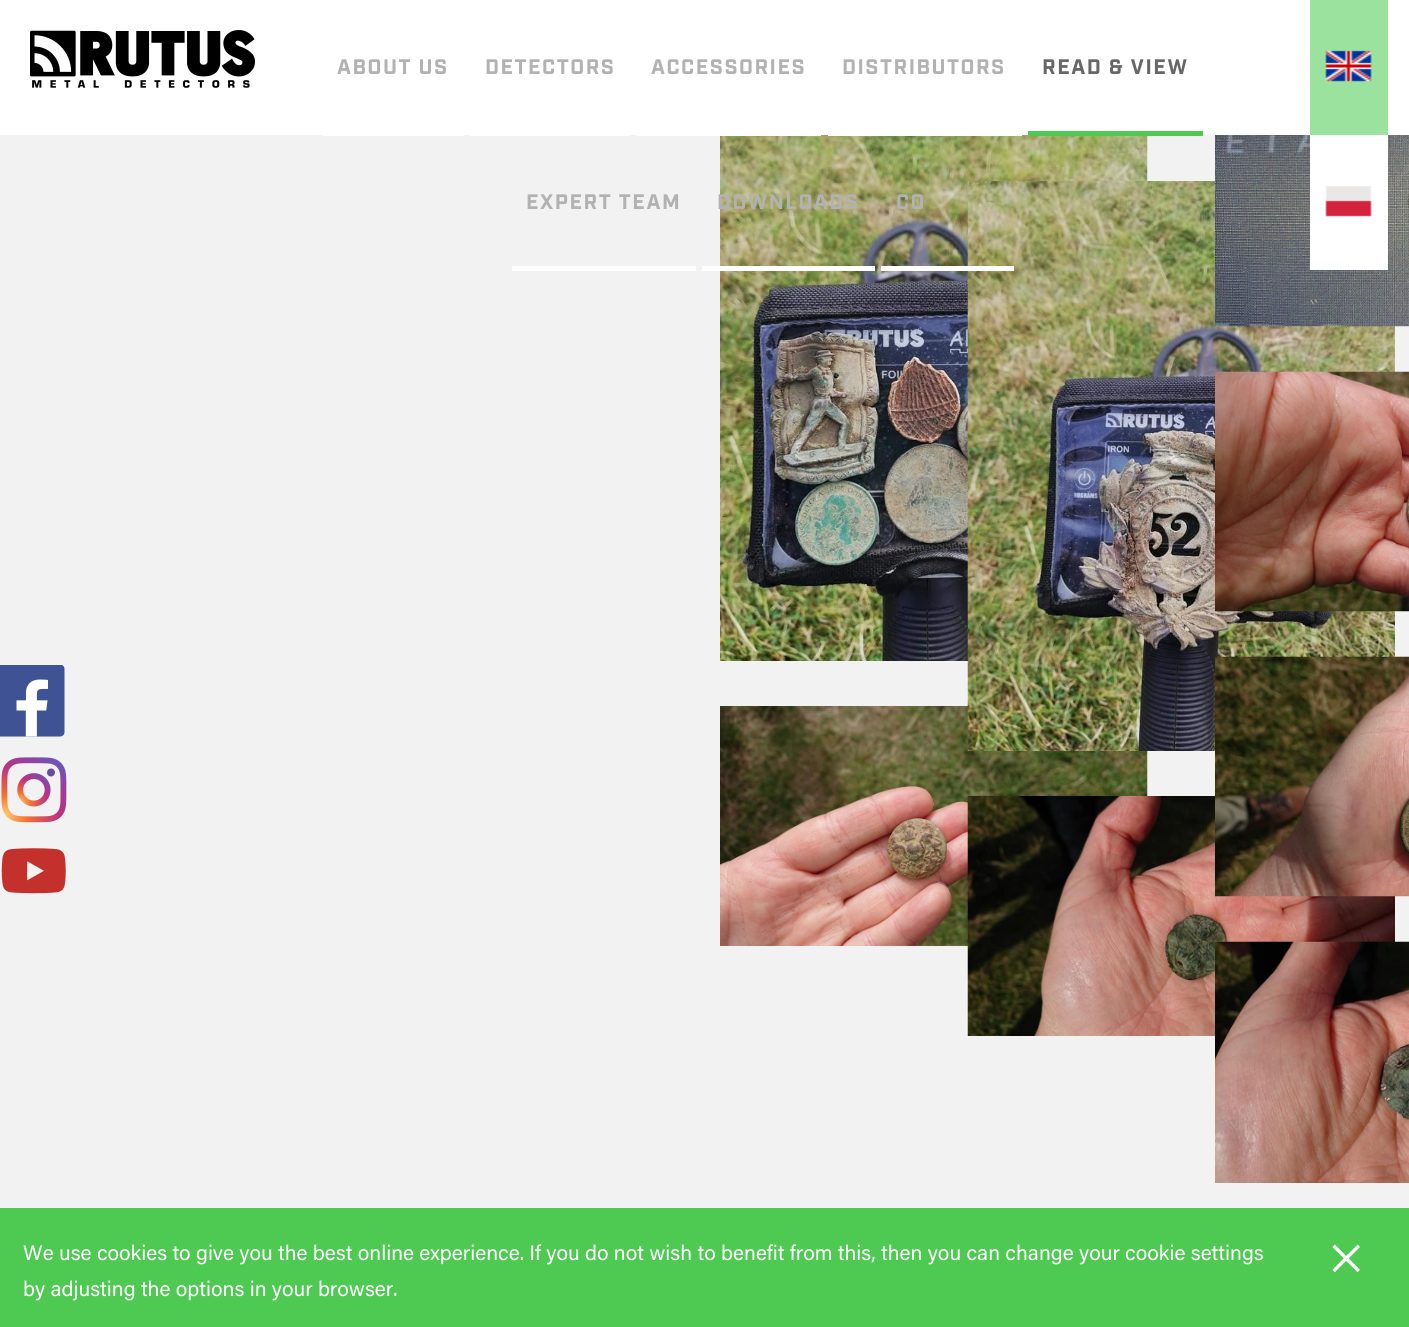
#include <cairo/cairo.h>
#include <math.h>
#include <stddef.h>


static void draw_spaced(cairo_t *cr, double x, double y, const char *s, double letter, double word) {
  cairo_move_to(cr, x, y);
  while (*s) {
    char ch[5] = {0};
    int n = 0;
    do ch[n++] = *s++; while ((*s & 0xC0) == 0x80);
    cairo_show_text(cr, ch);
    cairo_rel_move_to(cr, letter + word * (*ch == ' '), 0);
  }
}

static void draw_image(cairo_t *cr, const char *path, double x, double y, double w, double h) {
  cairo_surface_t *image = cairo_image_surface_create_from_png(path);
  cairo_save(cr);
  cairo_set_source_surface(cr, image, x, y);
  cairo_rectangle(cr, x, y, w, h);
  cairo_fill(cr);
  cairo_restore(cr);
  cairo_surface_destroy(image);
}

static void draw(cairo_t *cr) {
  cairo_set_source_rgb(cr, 242 / 255.0, 242 / 255.0, 242 / 255.0);
  cairo_paint(cr);
  cairo_set_source_rgb(cr, 1, 1, 1);
  cairo_rectangle(cr, 0, 0, 1409, 135);
  cairo_fill(cr);
  draw_image(cr, "images/1.png", 30, 30, 225, 58);
  cairo_rectangle(cr, 323, 135, 141, 1);
  cairo_fill(cr);
  cairo_rectangle(cr, 470, 135, 160, 1);
  cairo_fill(cr);
  draw_image(cr, "images/5.png", 720, 135, 428, 526);
  cairo_rectangle(cr, 636, 135, 185, 1);
  cairo_fill(cr);
  cairo_rectangle(cr, 828, 135, 194, 1);
  cairo_fill(cr);
  cairo_set_source_rgb(cr, 78 / 255.0, 202 / 255.0, 83 / 255.0);
  cairo_rectangle(cr, 1028, 131, 175, 5);
  cairo_fill(cr);
  cairo_set_source_rgb(cr, 1, 1, 1);
  cairo_rectangle(cr, 512, 266, 184, 5);
  cairo_fill(cr);
  cairo_rectangle(cr, 702, 266, 173, 5);
  cairo_fill(cr);
  draw_image(cr, "images/6.png", 720, 706, 428, 240);
  draw_image(cr, "images/11.png", 967, 181, 428, 570);
  cairo_rectangle(cr, 881, 266, 133, 5);
  cairo_fill(cr);
  cairo_set_source_rgb(cr, 156 / 255.0, 226 / 255.0, 159 / 255.0);
  cairo_rectangle(cr, 1310, 0, 78, 135);
  cairo_fill(cr);
  draw_image(cr, "images/2.png", 1325, 50, 47, 32);
  draw_image(cr, "images/7.png", 1215, 135, 194, 192);
  cairo_set_source_rgb(cr, 1, 1, 1);
  cairo_rectangle(cr, 1310, 135, 78, 135);
  cairo_fill(cr);
  draw_image(cr, "images/3.png", 1325, 186, 47, 31);
  draw_image(cr, "images/4.png", 0, 665, 65, 72);
  draw_image(cr, "images/8.png", 1215, 371, 194, 241);
  draw_image(cr, "images/12.png", 967, 796, 428, 240);
  draw_image(cr, "images/9.png", 1215, 656, 194, 241);
  draw_image(cr, "images/10.png", 1215, 941, 194, 242);
  draw_image(cr, "images/13.png", 1, 757, 66, 66);
  draw_image(cr, "images/14.png", 1, 848, 65, 46);
  cairo_set_source_rgb(cr, 78 / 255.0, 202 / 255.0, 83 / 255.0);
  cairo_rectangle(cr, 0, 1208, 1409, 119);
  cairo_fill(cr);
  cairo_select_font_face(cr, "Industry", CAIRO_FONT_SLANT_NORMAL, CAIRO_FONT_WEIGHT_BOLD);
  cairo_set_font_size(cr, 21);
  cairo_set_source_rgb(cr, 178 / 255.0, 178 / 255.0, 178 / 255.0);
  draw_spaced(cr, 337, 74, "ABOUT US", 1.5, 0);
  draw_spaced(cr, 485, 74, "DETECTORS", 1.5, 0);
  draw_spaced(cr, 651, 74, "ACCESSORIES", 1.5, 0);
  draw_spaced(cr, 842, 74, "DISTRIBUTORS", 1.5, 0);
  cairo_set_source_rgb(cr, 103 / 255.0, 103 / 255.0, 103 / 255.0);
  draw_spaced(cr, 1042, 74, "READ & VIEW", 1.5, 0);
  cairo_set_source_rgb(cr, 178 / 255.0, 178 / 255.0, 178 / 255.0);
  draw_spaced(cr, 526, 209, "EXPERT TEAM", 1.5, 0);
  draw_spaced(cr, 717, 209, "DOWNLOADS", 1.5, 0);
  draw_spaced(cr, 896, 209, "CO", 1.5, 0);
  cairo_select_font_face(cr, "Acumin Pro", CAIRO_FONT_SLANT_NORMAL, CAIRO_FONT_WEIGHT_NORMAL);
  cairo_set_source_rgb(cr, 1, 1, 1);
  cairo_move_to(cr, 23, 1260);
  cairo_show_text(cr, "We use cookies to give you the best online experience. If you do not wish to benefit from this, then you can change your cookie settings");
  cairo_move_to(cr, 23, 1296);
  cairo_show_text(cr, "by adjusting the options in your browser.");
  cairo_select_font_face(cr, "Liberation Serif", CAIRO_FONT_SLANT_NORMAL, CAIRO_FONT_WEIGHT_NORMAL);
  cairo_set_font_size(cr, 68);
  cairo_move_to(cr, 1327, 1281);
  cairo_show_text(cr, "×");
}

int main(void) {
  cairo_surface_t *surface = cairo_image_surface_create(CAIRO_FORMAT_RGB24, 1409, 1327);
  cairo_t *cr = cairo_create(surface);
  cairo_font_options_t *options = cairo_font_options_create();
  cairo_font_options_set_hint_metrics(options, CAIRO_HINT_METRICS_OFF);
  cairo_font_options_set_hint_style(options, CAIRO_HINT_STYLE_NONE);
  cairo_set_font_options(cr, options);
  cairo_set_miter_limit(cr, 4);
  draw(cr);
  cairo_surface_write_to_png(surface, "out.png");
  cairo_font_options_destroy(options);
  cairo_destroy(cr);
  cairo_surface_destroy(surface);
  return 0;
}
